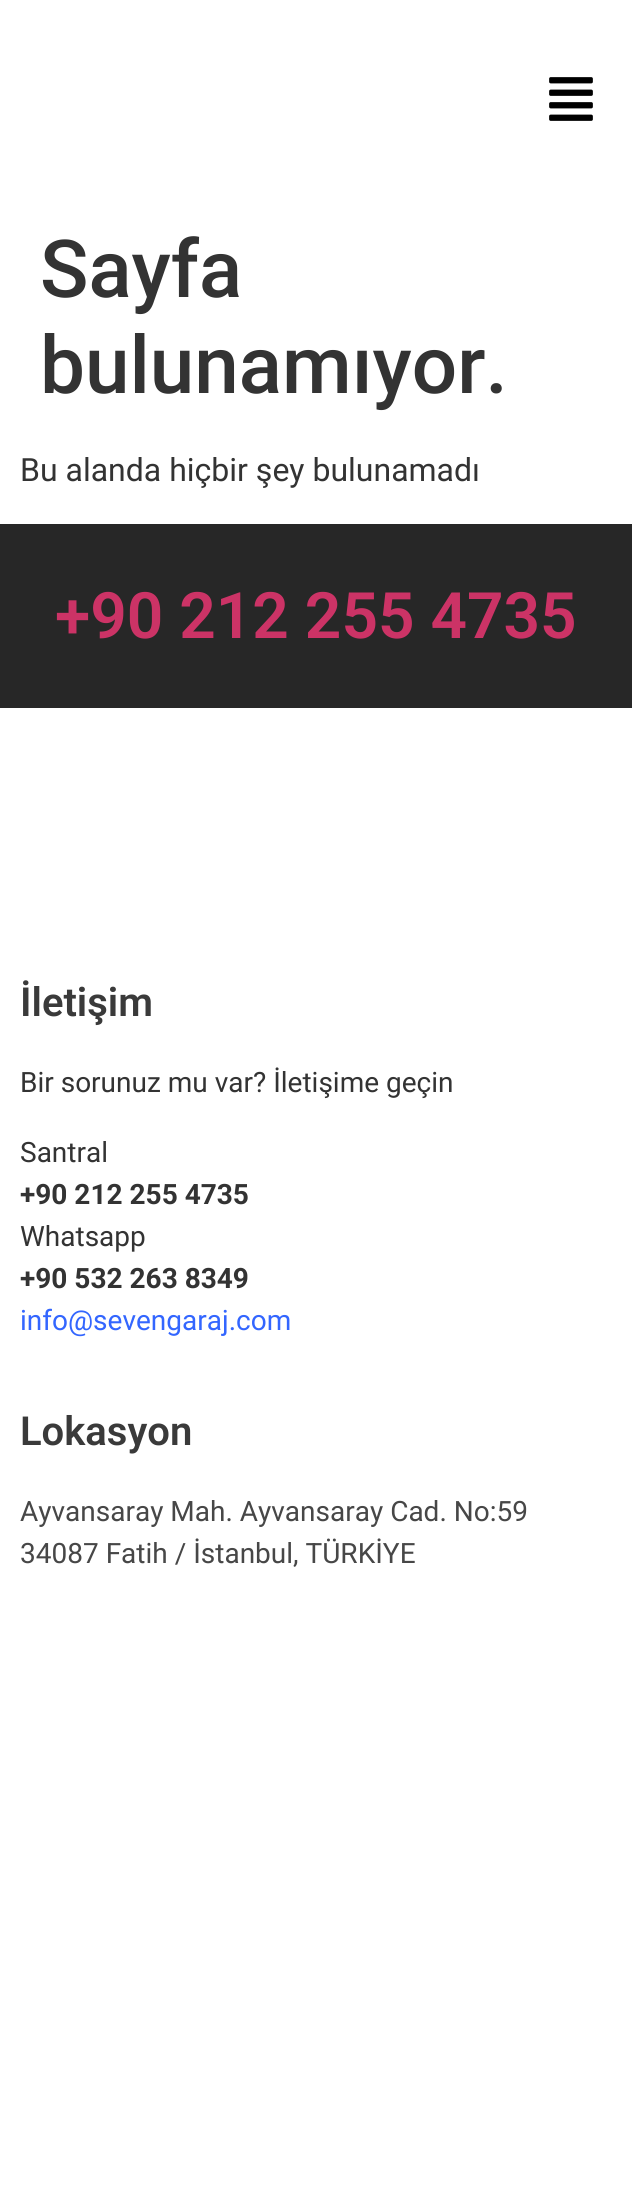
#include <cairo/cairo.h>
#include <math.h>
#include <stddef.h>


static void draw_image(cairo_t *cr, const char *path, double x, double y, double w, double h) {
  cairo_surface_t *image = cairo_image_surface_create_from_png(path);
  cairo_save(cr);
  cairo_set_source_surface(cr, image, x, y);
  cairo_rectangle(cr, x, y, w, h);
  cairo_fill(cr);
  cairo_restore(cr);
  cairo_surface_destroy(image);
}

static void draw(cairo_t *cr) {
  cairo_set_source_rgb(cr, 1, 1, 1);
  cairo_paint(cr);
  draw_image(cr, "images/1.png", 549, 77, 44, 44);
  cairo_set_source_rgb(cr, 39 / 255.0, 39 / 255.0, 39 / 255.0);
  cairo_rectangle(cr, 0, 524, 632, 184);
  cairo_fill(cr);
  cairo_select_font_face(cr, "Roboto Medium", CAIRO_FONT_SLANT_NORMAL, CAIRO_FONT_WEIGHT_NORMAL);
  cairo_set_font_size(cr, 80);
  cairo_set_source_rgb(cr, 51 / 255.0, 51 / 255.0, 51 / 255.0);
  cairo_move_to(cr, 40, 297);
  cairo_show_text(cr, "Sayfa");
  cairo_move_to(cr, 40, 393);
  cairo_show_text(cr, "bulunamıyor.");
  cairo_select_font_face(cr, "Roboto", CAIRO_FONT_SLANT_NORMAL, CAIRO_FONT_WEIGHT_NORMAL);
  cairo_set_font_size(cr, 32);
  cairo_move_to(cr, 20, 481);
  cairo_show_text(cr, "Bu alanda hiçbir şey bulunamadı");
  cairo_select_font_face(cr, "Roboto SemiBold", CAIRO_FONT_SLANT_NORMAL, CAIRO_FONT_WEIGHT_NORMAL);
  cairo_set_font_size(cr, 64);
  cairo_set_source_rgb(cr, 204 / 255.0, 51 / 255.0, 102 / 255.0);
  cairo_move_to(cr, 55, 638);
  cairo_show_text(cr, "+90 212 255 4735");
  cairo_set_font_size(cr, 40);
  cairo_set_source_rgb(cr, 58 / 255.0, 58 / 255.0, 58 / 255.0);
  cairo_move_to(cr, 20, 1016);
  cairo_show_text(cr, "İletişim");
  cairo_select_font_face(cr, "Roboto", CAIRO_FONT_SLANT_NORMAL, CAIRO_FONT_WEIGHT_NORMAL);
  cairo_set_font_size(cr, 28);
  cairo_set_source_rgb(cr, 51 / 255.0, 51 / 255.0, 51 / 255.0);
  cairo_move_to(cr, 20, 1092);
  cairo_show_text(cr, "Bir sorunuz mu var? İletişime geçin");
  cairo_move_to(cr, 20, 1162);
  cairo_show_text(cr, "Santral");
  cairo_select_font_face(cr, "Roboto", CAIRO_FONT_SLANT_NORMAL, CAIRO_FONT_WEIGHT_BOLD);
  cairo_move_to(cr, 20, 1204);
  cairo_show_text(cr, "+90 212 255 4735");
  cairo_select_font_face(cr, "Roboto", CAIRO_FONT_SLANT_NORMAL, CAIRO_FONT_WEIGHT_NORMAL);
  cairo_move_to(cr, 20, 1246);
  cairo_show_text(cr, "Whatsapp");
  cairo_select_font_face(cr, "Roboto", CAIRO_FONT_SLANT_NORMAL, CAIRO_FONT_WEIGHT_BOLD);
  cairo_move_to(cr, 20, 1288);
  cairo_show_text(cr, "+90 532 263 8349");
  cairo_select_font_face(cr, "Roboto", CAIRO_FONT_SLANT_NORMAL, CAIRO_FONT_WEIGHT_NORMAL);
  cairo_set_source_rgb(cr, 51 / 255.0, 102 / 255.0, 1);
  cairo_move_to(cr, 20, 1330);
  cairo_show_text(cr, "info@sevengaraj.com");
  cairo_select_font_face(cr, "Roboto SemiBold", CAIRO_FONT_SLANT_NORMAL, CAIRO_FONT_WEIGHT_NORMAL);
  cairo_set_font_size(cr, 40);
  cairo_set_source_rgb(cr, 58 / 255.0, 58 / 255.0, 58 / 255.0);
  cairo_move_to(cr, 20, 1445);
  cairo_show_text(cr, "Lokasyon");
  cairo_select_font_face(cr, "Roboto", CAIRO_FONT_SLANT_NORMAL, CAIRO_FONT_WEIGHT_NORMAL);
  cairo_set_font_size(cr, 28);
  cairo_set_source_rgb(cr, 71 / 255.0, 71 / 255.0, 71 / 255.0);
  cairo_move_to(cr, 20, 1521);
  cairo_show_text(cr, "Ayvansaray Mah. Ayvansaray Cad. No:59");
  cairo_move_to(cr, 20, 1563);
  cairo_show_text(cr, "34087 Fatih / İstanbul, TÜRKİYE");
}

int main(void) {
  cairo_surface_t *surface = cairo_image_surface_create(CAIRO_FORMAT_RGB24, 632, 2188);
  cairo_t *cr = cairo_create(surface);
  cairo_font_options_t *options = cairo_font_options_create();
  cairo_font_options_set_hint_metrics(options, CAIRO_HINT_METRICS_OFF);
  cairo_font_options_set_hint_style(options, CAIRO_HINT_STYLE_NONE);
  cairo_set_font_options(cr, options);
  cairo_set_miter_limit(cr, 4);
  draw(cr);
  cairo_surface_write_to_png(surface, "out.png");
  cairo_font_options_destroy(options);
  cairo_destroy(cr);
  cairo_surface_destroy(surface);
  return 0;
}
